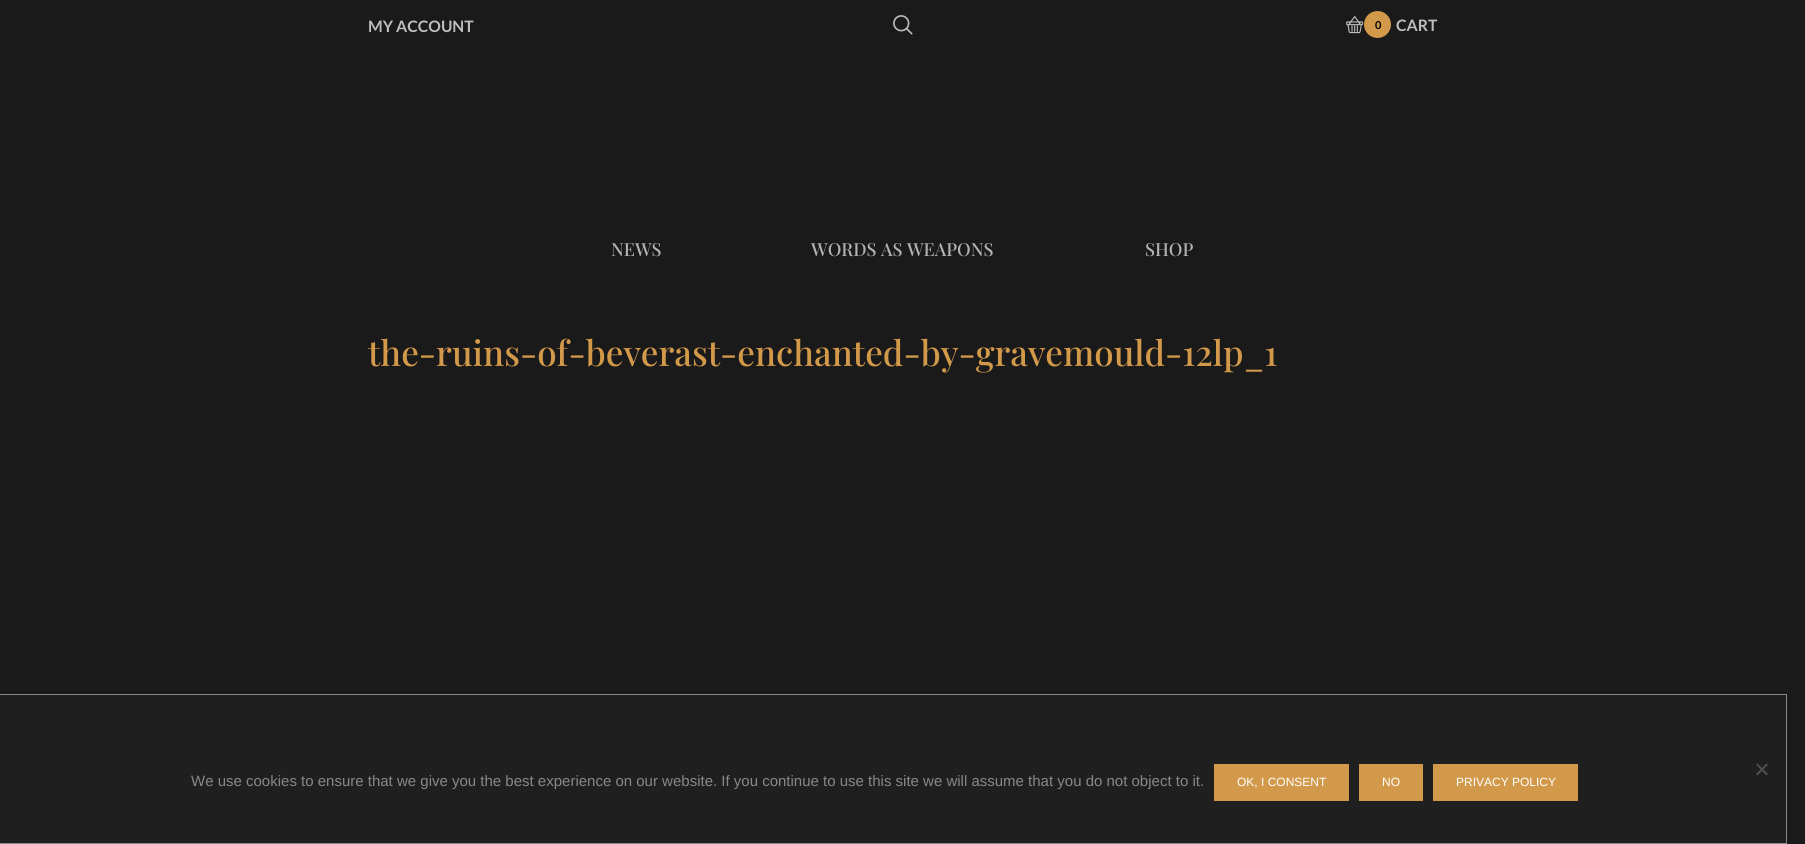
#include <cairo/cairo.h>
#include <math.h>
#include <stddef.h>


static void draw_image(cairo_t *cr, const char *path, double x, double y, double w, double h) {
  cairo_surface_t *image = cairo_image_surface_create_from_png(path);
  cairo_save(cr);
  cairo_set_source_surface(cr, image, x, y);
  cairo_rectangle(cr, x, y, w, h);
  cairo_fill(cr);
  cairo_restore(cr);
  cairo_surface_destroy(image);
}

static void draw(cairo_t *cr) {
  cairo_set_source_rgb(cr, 26 / 255.0, 26 / 255.0, 26 / 255.0);
  cairo_paint(cr);
  draw_image(cr, "images/1.png", 893, 15, 20, 20);
  draw_image(cr, "images/2.png", 1346, 16, 18, 18);
  cairo_set_source_rgb(cr, 211 / 255.0, 153 / 255.0, 74 / 255.0);
  cairo_arc(cr, 1377.5, 24.5, 13.5, 0, 2 * M_PI);
  cairo_fill(cr);
  cairo_set_source_rgb(cr, 31 / 255.0, 31 / 255.0, 31 / 255.0);
  cairo_rectangle(cr, -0.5, 694.5, 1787, 149);
  cairo_fill_preserve(cr);
  cairo_set_source_rgb(cr, 136 / 255.0, 136 / 255.0, 136 / 255.0);
  cairo_set_line_width(cr, 1);
  cairo_stroke(cr);
  cairo_set_source_rgb(cr, 80 / 255.0, 80 / 255.0, 80 / 255.0);
  cairo_new_path(cr);
  cairo_move_to(cr, 1766.5, 763.5);
  cairo_line_to(cr, 1768, 764.5);
  cairo_line_to(cr, 1757.5, 775.5);
  cairo_line_to(cr, 1756, 774);
  cairo_close_path(cr);
  cairo_fill(cr);
  cairo_new_path(cr);
  cairo_move_to(cr, 1756, 764.5);
  cairo_line_to(cr, 1757.5, 763.5);
  cairo_line_to(cr, 1768, 774);
  cairo_line_to(cr, 1766.5, 775.5);
  cairo_close_path(cr);
  cairo_fill(cr);
  cairo_set_source_rgb(cr, 211 / 255.0, 153 / 255.0, 74 / 255.0);
  cairo_rectangle(cr, 1214, 764, 135, 37);
  cairo_fill(cr);
  cairo_rectangle(cr, 1359, 764, 64, 37);
  cairo_fill(cr);
  cairo_rectangle(cr, 1433, 764, 145, 37);
  cairo_fill(cr);
  cairo_select_font_face(cr, "Lato", CAIRO_FONT_SLANT_NORMAL, CAIRO_FONT_WEIGHT_BOLD);
  cairo_set_font_size(cr, 15.75);
  cairo_set_source_rgb(cr, 189 / 255.0, 189 / 255.0, 189 / 255.0);
  cairo_move_to(cr, 368, 32);
  cairo_show_text(cr, "MY ACCOUNT");
  cairo_set_font_size(cr, 11);
  cairo_set_source_rgb(cr, 0, 0, 0);
  cairo_move_to(cr, 1375, 29);
  cairo_show_text(cr, "0");
  cairo_set_font_size(cr, 15.75);
  cairo_set_source_rgb(cr, 189 / 255.0, 189 / 255.0, 189 / 255.0);
  cairo_move_to(cr, 1396, 31);
  cairo_show_text(cr, "CART");
  cairo_select_font_face(cr, "Playfair Display Medium", CAIRO_FONT_SLANT_NORMAL, CAIRO_FONT_WEIGHT_NORMAL);
  cairo_set_font_size(cr, 18);
  cairo_set_source_rgb(cr, 179 / 255.0, 179 / 255.0, 179 / 255.0);
  cairo_move_to(cr, 611, 256);
  cairo_show_text(cr, "NEWS");
  cairo_move_to(cr, 811, 256);
  cairo_show_text(cr, "WORDS AS WEAPONS");
  cairo_move_to(cr, 1145, 256);
  cairo_show_text(cr, "SHOP");
  cairo_set_font_size(cr, 35);
  cairo_set_source_rgb(cr, 211 / 255.0, 153 / 255.0, 74 / 255.0);
  cairo_move_to(cr, 368, 366);
  cairo_show_text(cr, "the-ruins-of-beverast-enchanted-by-gravemould-12lp_1");
  cairo_select_font_face(cr, "Liberation Sans", CAIRO_FONT_SLANT_NORMAL, CAIRO_FONT_WEIGHT_NORMAL);
  cairo_set_font_size(cr, 15);
  cairo_set_source_rgb(cr, 136 / 255.0, 136 / 255.0, 136 / 255.0);
  cairo_move_to(cr, 191, 786);
  cairo_show_text(cr, "We use cookies to ensure that we give you the best experience on our website. If you continue to use this site we will assume that you do not object to it.");
  cairo_set_font_size(cr, 12);
  cairo_set_source_rgb(cr, 1, 1, 1);
  cairo_move_to(cr, 1237, 786);
  cairo_show_text(cr, "OK, I CONSENT");
  cairo_move_to(cr, 1382, 786);
  cairo_show_text(cr, "NO");
  cairo_move_to(cr, 1456, 786);
  cairo_show_text(cr, "PRIVACY POLICY");
}

int main(void) {
  cairo_surface_t *surface = cairo_image_surface_create(CAIRO_FORMAT_RGB24, 1805, 844);
  cairo_t *cr = cairo_create(surface);
  cairo_font_options_t *options = cairo_font_options_create();
  cairo_font_options_set_hint_metrics(options, CAIRO_HINT_METRICS_OFF);
  cairo_font_options_set_hint_style(options, CAIRO_HINT_STYLE_NONE);
  cairo_set_font_options(cr, options);
  cairo_set_miter_limit(cr, 4);
  draw(cr);
  cairo_surface_write_to_png(surface, "out.png");
  cairo_font_options_destroy(options);
  cairo_destroy(cr);
  cairo_surface_destroy(surface);
  return 0;
}
